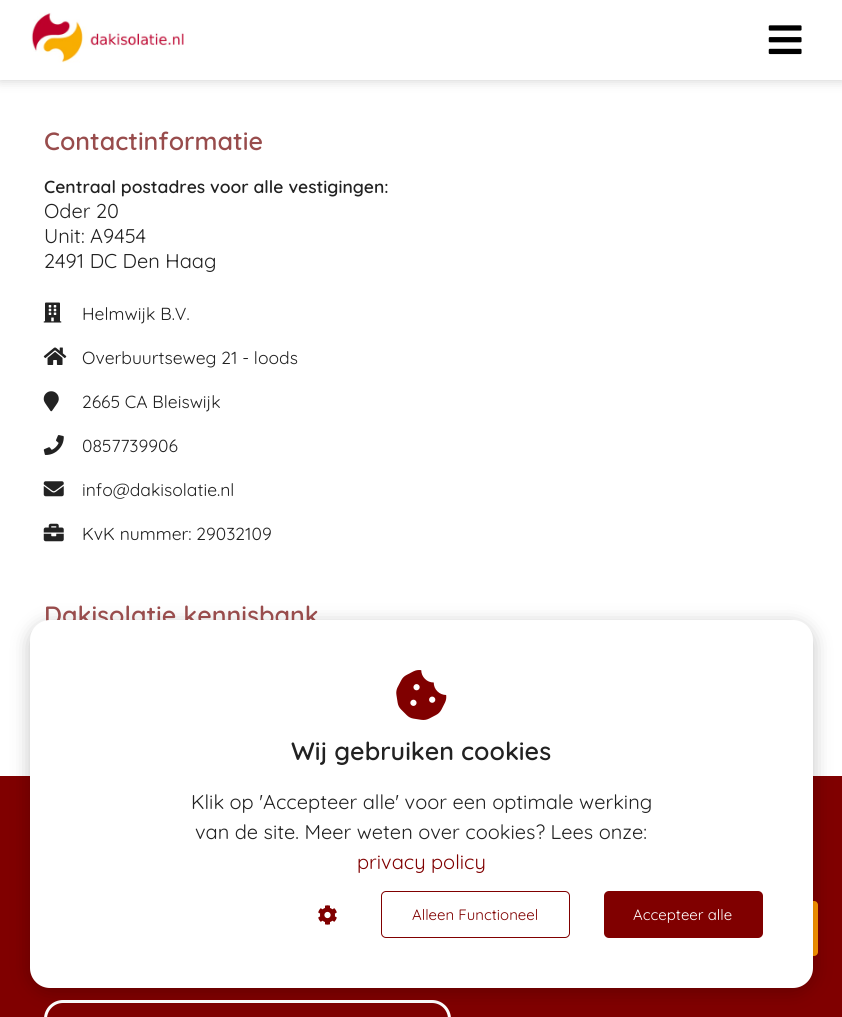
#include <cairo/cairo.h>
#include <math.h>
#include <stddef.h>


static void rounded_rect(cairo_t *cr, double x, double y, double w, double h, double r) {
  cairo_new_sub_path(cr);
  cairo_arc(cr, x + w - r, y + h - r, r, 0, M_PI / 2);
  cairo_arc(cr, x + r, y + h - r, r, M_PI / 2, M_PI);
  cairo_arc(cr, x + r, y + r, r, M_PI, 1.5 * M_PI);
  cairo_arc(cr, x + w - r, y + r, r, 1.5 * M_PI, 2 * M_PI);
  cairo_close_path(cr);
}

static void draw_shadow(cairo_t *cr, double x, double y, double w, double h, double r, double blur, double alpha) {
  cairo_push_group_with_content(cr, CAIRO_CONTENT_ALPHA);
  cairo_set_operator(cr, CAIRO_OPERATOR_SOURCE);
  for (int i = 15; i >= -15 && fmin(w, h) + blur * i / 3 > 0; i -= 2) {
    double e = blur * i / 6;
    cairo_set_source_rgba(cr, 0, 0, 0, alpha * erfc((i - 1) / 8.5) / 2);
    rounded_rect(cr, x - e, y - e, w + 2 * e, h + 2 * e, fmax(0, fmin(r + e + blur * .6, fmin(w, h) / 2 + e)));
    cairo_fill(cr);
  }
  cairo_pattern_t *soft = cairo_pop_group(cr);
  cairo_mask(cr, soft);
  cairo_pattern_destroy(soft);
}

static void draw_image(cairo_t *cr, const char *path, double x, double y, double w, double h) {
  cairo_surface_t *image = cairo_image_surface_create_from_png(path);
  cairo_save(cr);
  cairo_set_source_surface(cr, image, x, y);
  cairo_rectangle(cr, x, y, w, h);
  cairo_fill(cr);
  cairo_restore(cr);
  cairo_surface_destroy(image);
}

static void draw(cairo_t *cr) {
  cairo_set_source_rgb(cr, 1, 1, 1);
  cairo_paint(cr);
  cairo_set_source_rgb(cr, 0, 0, 0);
  draw_shadow(cr, 0, 0, 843, 80, 0, 6, 0.2);
  cairo_set_source_rgb(cr, 1, 1, 1);
  cairo_rectangle(cr, 0, 0, 842, 80);
  cairo_fill(cr);
  draw_image(cr, "images/1.png", 31, 12, 153, 51);
  draw_image(cr, "images/2.png", 768, 25, 34, 30);
  draw_image(cr, "images/3.png", 43, 302, 19, 21);
  draw_image(cr, "images/4.png", 43, 347, 24, 18);
  draw_image(cr, "images/5.png", 43, 391, 16, 21);
  draw_image(cr, "images/6.png", 43, 435, 21, 20);
  draw_image(cr, "images/7.png", 43, 481, 21, 16);
  draw_image(cr, "images/8.png", 43, 523, 21, 19);
  cairo_set_source_rgb(cr, 128 / 255.0, 0, 0);
  cairo_rectangle(cr, 0, 776, 842, 241);
  cairo_fill(cr);
  cairo_set_source_rgb(cr, 1, 152 / 255.0, 0);
  rounded_rect(cr, 629, 901, 189, 55, 4);
  cairo_fill(cr);
  rounded_rect(cr, 45.5, 1001.5, 404, 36, 17.5);
  cairo_set_source_rgb(cr, 1, 1, 1);
  cairo_set_line_width(cr, 3);
  cairo_stroke(cr);
  cairo_set_source_rgb(cr, 0, 0, 0);
  draw_shadow(cr, 30, 624, 783, 367, 20, 9.5, 0.24);
  cairo_select_font_face(cr, "Quicksand SemiBold", CAIRO_FONT_SLANT_NORMAL, CAIRO_FONT_WEIGHT_NORMAL);
  cairo_set_font_size(cr, 25);
  cairo_set_source_rgb(cr, 152 / 255.0, 76 / 255.0, 76 / 255.0);
  cairo_move_to(cr, 44, 150);
  cairo_show_text(cr, "Contactinformatie");
  cairo_set_font_size(cr, 17.5);
  cairo_set_source_rgb(cr, 34 / 255.0, 34 / 255.0, 34 / 255.0);
  cairo_move_to(cr, 44, 193);
  cairo_show_text(cr, "Centraal postadres voor alle vestigingen:");
  cairo_select_font_face(cr, "Quicksand", CAIRO_FONT_SLANT_NORMAL, CAIRO_FONT_WEIGHT_NORMAL);
  cairo_set_font_size(cr, 20);
  cairo_move_to(cr, 44, 218);
  cairo_show_text(cr, "Oder 20");
  cairo_move_to(cr, 44, 243);
  cairo_show_text(cr, "Unit: A9454");
  cairo_move_to(cr, 44, 268);
  cairo_show_text(cr, "2491 DC Den Haag");
  cairo_set_font_size(cr, 17.5);
  cairo_move_to(cr, 82, 320);
  cairo_show_text(cr, "Helmwijk B.V.");
  cairo_move_to(cr, 82, 364);
  cairo_show_text(cr, "Overbuurtseweg 21 - loods");
  cairo_move_to(cr, 82, 408);
  cairo_show_text(cr, "2665 CA Bleiswijk");
  cairo_move_to(cr, 82, 452);
  cairo_show_text(cr, "0857739906");
  cairo_move_to(cr, 82, 496);
  cairo_show_text(cr, "info@dakisolatie.nl");
  cairo_move_to(cr, 82, 540);
  cairo_show_text(cr, "KvK nummer: 29032109");
  cairo_select_font_face(cr, "Quicksand SemiBold", CAIRO_FONT_SLANT_NORMAL, CAIRO_FONT_WEIGHT_NORMAL);
  cairo_set_font_size(cr, 25);
  cairo_set_source_rgb(cr, 152 / 255.0, 76 / 255.0, 76 / 255.0);
  cairo_move_to(cr, 44, 624);
  cairo_show_text(cr, "Dakisolatie kennisbank");
  cairo_set_source_rgb(cr, 1, 1, 1);
  rounded_rect(cr, 30, 620, 783, 368, 20);
  cairo_fill(cr);
  draw_image(cr, "images/9.png", 396, 670, 51, 50);
  cairo_set_source_rgb(cr, 34 / 255.0, 34 / 255.0, 34 / 255.0);
  cairo_move_to(cr, 291, 760);
  cairo_show_text(cr, "Wij gebruiken cookies");
  cairo_select_font_face(cr, "Quicksand", CAIRO_FONT_SLANT_NORMAL, CAIRO_FONT_WEIGHT_NORMAL);
  cairo_set_font_size(cr, 20);
  cairo_move_to(cr, 191, 809);
  cairo_show_text(cr, "Klik op 'Accepteer alle' voor een optimale werking");
  cairo_move_to(cr, 195, 839);
  cairo_show_text(cr, "van de site. Meer weten over cookies? Lees onze:");
  cairo_set_source_rgb(cr, 128 / 255.0, 0, 0);
  cairo_move_to(cr, 357, 869);
  cairo_show_text(cr, "privacy policy");
  draw_image(cr, "images/10.png", 318, 905, 19, 20);
  rounded_rect(cr, 381.5, 891.5, 188, 46, 4.5);
  cairo_set_line_width(cr, 1);
  cairo_stroke(cr);
  cairo_set_font_size(cr, 15);
  cairo_move_to(cr, 412, 920);
  cairo_show_text(cr, "Alleen Functioneel");
  rounded_rect(cr, 604, 891, 159, 47, 5);
  cairo_fill(cr);
  cairo_set_source_rgb(cr, 1, 1, 1);
  cairo_move_to(cr, 633, 920);
  cairo_show_text(cr, "Accepteer alle");
}

int main(void) {
  cairo_surface_t *surface = cairo_image_surface_create(CAIRO_FORMAT_RGB24, 842, 1017);
  cairo_t *cr = cairo_create(surface);
  cairo_font_options_t *options = cairo_font_options_create();
  cairo_font_options_set_hint_metrics(options, CAIRO_HINT_METRICS_OFF);
  cairo_font_options_set_hint_style(options, CAIRO_HINT_STYLE_NONE);
  cairo_set_font_options(cr, options);
  cairo_set_miter_limit(cr, 4);
  draw(cr);
  cairo_surface_write_to_png(surface, "out.png");
  cairo_font_options_destroy(options);
  cairo_destroy(cr);
  cairo_surface_destroy(surface);
  return 0;
}
